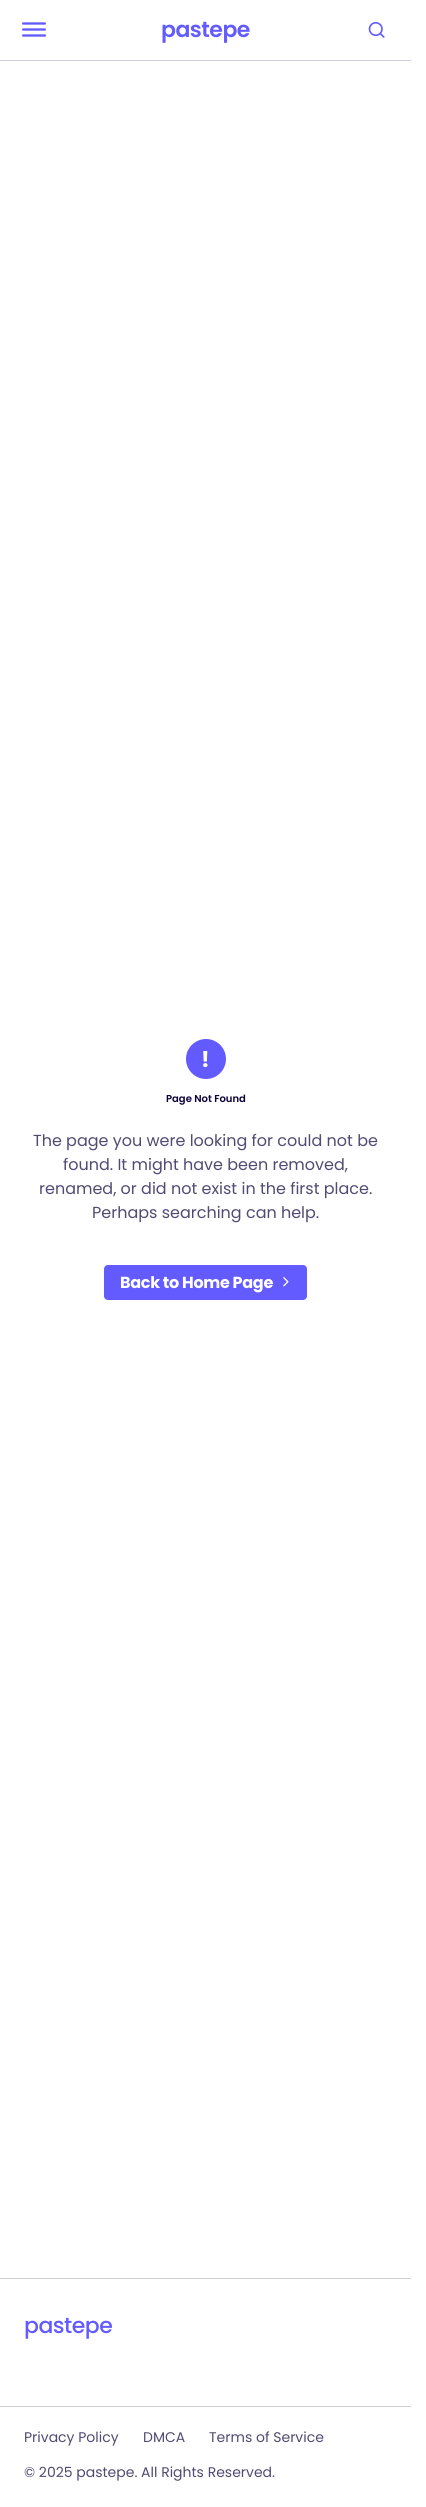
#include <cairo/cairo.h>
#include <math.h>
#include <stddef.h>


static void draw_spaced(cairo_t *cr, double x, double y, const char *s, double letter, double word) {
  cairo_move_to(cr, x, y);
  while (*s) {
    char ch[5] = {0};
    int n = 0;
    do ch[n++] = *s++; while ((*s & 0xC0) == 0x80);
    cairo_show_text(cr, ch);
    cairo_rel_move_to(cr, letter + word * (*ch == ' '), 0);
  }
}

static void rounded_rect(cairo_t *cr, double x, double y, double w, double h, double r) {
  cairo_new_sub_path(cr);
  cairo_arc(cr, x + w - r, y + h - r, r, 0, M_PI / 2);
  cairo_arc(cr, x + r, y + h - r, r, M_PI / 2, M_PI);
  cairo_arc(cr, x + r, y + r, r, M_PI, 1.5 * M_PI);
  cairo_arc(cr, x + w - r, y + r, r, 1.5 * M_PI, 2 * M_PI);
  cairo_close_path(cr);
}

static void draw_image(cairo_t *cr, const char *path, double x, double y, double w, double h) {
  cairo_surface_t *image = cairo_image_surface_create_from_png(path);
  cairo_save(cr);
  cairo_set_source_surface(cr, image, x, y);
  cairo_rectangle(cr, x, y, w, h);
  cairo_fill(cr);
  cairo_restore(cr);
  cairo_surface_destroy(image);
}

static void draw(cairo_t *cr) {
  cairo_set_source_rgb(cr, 1, 1, 1);
  cairo_paint(cr);
  draw_image(cr, "images/1.png", 22, 22, 24, 15);
  draw_image(cr, "images/2.png", 368, 21, 17, 17);
  cairo_set_source_rgb(cr, 206 / 255.0, 204 / 255.0, 215 / 255.0);
  cairo_rectangle(cr, 0, 60, 411, 1);
  cairo_fill(cr);
  cairo_set_source_rgb(cr, 99 / 255.0, 91 / 255.0, 1);
  cairo_arc(cr, 206, 1059, 20, 0, 2 * M_PI);
  cairo_fill(cr);
  rounded_rect(cr, 104, 1265, 203, 35, 4);
  cairo_fill(cr);
  draw_image(cr, "images/3.png", 283, 1277, 6, 10);
  cairo_set_source_rgb(cr, 206 / 255.0, 204 / 255.0, 215 / 255.0);
  cairo_rectangle(cr, 0, 2278, 411, 1);
  cairo_fill(cr);
  cairo_rectangle(cr, 0, 2406, 411, 1);
  cairo_fill(cr);
  cairo_select_font_face(cr, "Poppins SemiBold", CAIRO_FONT_SLANT_NORMAL, CAIRO_FONT_WEIGHT_NORMAL);
  cairo_set_font_size(cr, 22);
  cairo_set_source_rgb(cr, 99 / 255.0, 91 / 255.0, 1);
  draw_spaced(cr, 161, 37, "pastepe", -0.5, 0);
  cairo_select_font_face(cr, "Poppins", CAIRO_FONT_SLANT_NORMAL, CAIRO_FONT_WEIGHT_BOLD);
  cairo_set_source_rgb(cr, 1, 1, 1);
  cairo_move_to(cr, 201, 1067);
  cairo_show_text(cr, "!");
  cairo_select_font_face(cr, "Poppins SemiBold", CAIRO_FONT_SLANT_NORMAL, CAIRO_FONT_WEIGHT_NORMAL);
  cairo_set_font_size(cr, 10);
  cairo_set_source_rgb(cr, 11 / 255.0, 0, 57 / 255.0);
  cairo_move_to(cr, 166, 1102);
  cairo_show_text(cr, "Page Not Found");
  cairo_select_font_face(cr, "Poppins", CAIRO_FONT_SLANT_NORMAL, CAIRO_FONT_WEIGHT_NORMAL);
  cairo_set_font_size(cr, 16);
  cairo_set_source_rgb(cr, 82 / 255.0, 74 / 255.0, 114 / 255.0);
  cairo_move_to(cr, 33, 1146);
  cairo_show_text(cr, "The page you were looking for could not be");
  cairo_move_to(cr, 63, 1170);
  cairo_show_text(cr, "found. It might have been removed,");
  cairo_move_to(cr, 39, 1194);
  cairo_show_text(cr, "renamed, or did not exist in the first place.");
  cairo_move_to(cr, 92, 1218);
  cairo_show_text(cr, "Perhaps searching can help.");
  cairo_select_font_face(cr, "Poppins", CAIRO_FONT_SLANT_NORMAL, CAIRO_FONT_WEIGHT_BOLD);
  cairo_set_source_rgb(cr, 1, 1, 1);
  draw_spaced(cr, 120, 1288, "Back to Home Page", -0.3, 0);
  cairo_select_font_face(cr, "Poppins Medium", CAIRO_FONT_SLANT_NORMAL, CAIRO_FONT_WEIGHT_NORMAL);
  cairo_set_font_size(cr, 22);
  cairo_set_source_rgb(cr, 99 / 255.0, 91 / 255.0, 1);
  draw_spaced(cr, 24, 2333, "pastepe", -0.5, 0);
  cairo_select_font_face(cr, "Poppins", CAIRO_FONT_SLANT_NORMAL, CAIRO_FONT_WEIGHT_NORMAL);
  cairo_set_font_size(cr, 14);
  cairo_set_source_rgb(cr, 82 / 255.0, 74 / 255.0, 114 / 255.0);
  cairo_move_to(cr, 24, 2442);
  cairo_show_text(cr, "Privacy Policy");
  cairo_move_to(cr, 143, 2442);
  cairo_show_text(cr, "DMCA");
  cairo_move_to(cr, 209, 2442);
  cairo_show_text(cr, "Terms of Service");
  cairo_move_to(cr, 24, 2477);
  cairo_show_text(cr, "© 2025 pastepe. All Rights Reserved.");
}

int main(void) {
  cairo_surface_t *surface = cairo_image_surface_create(CAIRO_FORMAT_RGB24, 426, 2507);
  cairo_t *cr = cairo_create(surface);
  cairo_font_options_t *options = cairo_font_options_create();
  cairo_font_options_set_hint_metrics(options, CAIRO_HINT_METRICS_OFF);
  cairo_font_options_set_hint_style(options, CAIRO_HINT_STYLE_NONE);
  cairo_set_font_options(cr, options);
  cairo_set_miter_limit(cr, 4);
  draw(cr);
  cairo_surface_write_to_png(surface, "out.png");
  cairo_font_options_destroy(options);
  cairo_destroy(cr);
  cairo_surface_destroy(surface);
  return 0;
}
